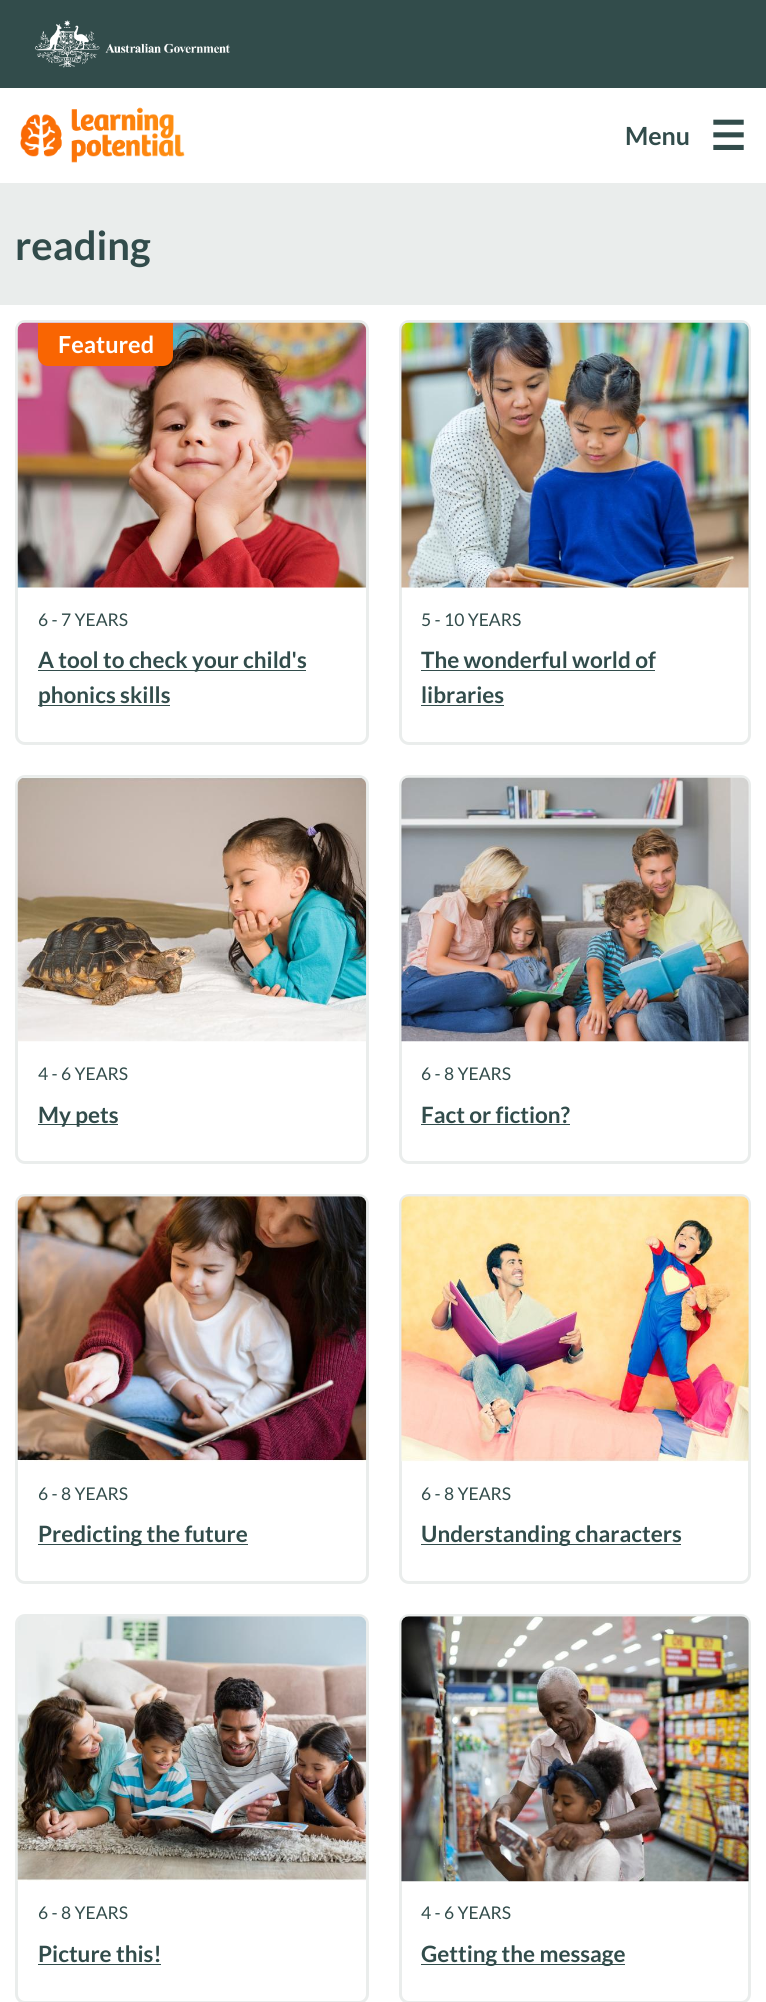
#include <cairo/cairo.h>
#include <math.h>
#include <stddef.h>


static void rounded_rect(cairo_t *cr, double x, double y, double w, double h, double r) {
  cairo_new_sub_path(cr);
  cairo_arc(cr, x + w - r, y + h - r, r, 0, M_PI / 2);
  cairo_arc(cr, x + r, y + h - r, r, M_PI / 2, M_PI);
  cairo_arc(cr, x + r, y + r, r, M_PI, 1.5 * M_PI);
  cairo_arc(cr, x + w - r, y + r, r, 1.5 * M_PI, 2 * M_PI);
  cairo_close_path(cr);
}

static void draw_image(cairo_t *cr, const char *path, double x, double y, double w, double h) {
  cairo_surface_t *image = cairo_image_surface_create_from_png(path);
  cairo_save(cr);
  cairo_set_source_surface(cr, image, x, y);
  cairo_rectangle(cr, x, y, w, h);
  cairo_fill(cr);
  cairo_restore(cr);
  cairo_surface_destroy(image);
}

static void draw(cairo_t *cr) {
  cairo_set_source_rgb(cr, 1, 1, 1);
  cairo_paint(cr);
  cairo_set_source_rgb(cr, 234 / 255.0, 237 / 255.0, 236 / 255.0);
  cairo_rectangle(cr, 0, 183, 766, 122);
  cairo_fill(cr);
  cairo_set_source_rgb(cr, 50 / 255.0, 76 / 255.0, 75 / 255.0);
  cairo_rectangle(cr, 0, 0, 766, 88);
  cairo_fill(cr);
  draw_image(cr, "images/1.png", 35, 20, 195, 48);
  draw_image(cr, "images/2.png", 20, 107, 165, 56);
  rounded_rect(cr, 16.5, 321.5, 351, 422, 8.5);
  cairo_set_source_rgb(cr, 234 / 255.0, 237 / 255.0, 236 / 255.0);
  cairo_set_line_width(cr, 3);
  cairo_stroke(cr);
  draw_image(cr, "images/3.png", 17, 322, 350, 266);
  cairo_set_source_rgb(cr, 249 / 255.0, 101 / 255.0, 2 / 255.0);
  cairo_new_path(cr);
  cairo_move_to(cr, 38, 323);
  cairo_line_to(cr, 173, 323);
  cairo_line_to(cr, 173, 356);
  cairo_curve_to(cr, 173, 361.5, 168.5, 366, 163, 366);
  cairo_line_to(cr, 48, 366);
  cairo_curve_to(cr, 42.5, 366, 38, 361.5, 38, 356);
  cairo_close_path(cr);
  cairo_fill(cr);
  cairo_set_source_rgb(cr, 50 / 255.0, 76 / 255.0, 75 / 255.0);
  cairo_rectangle(cr, 38, 670, 268, 1);
  cairo_fill(cr);
  cairo_rectangle(cr, 38, 705, 132, 1);
  cairo_fill(cr);
  rounded_rect(cr, 400.5, 321.5, 349, 422, 8.5);
  cairo_set_source_rgb(cr, 234 / 255.0, 237 / 255.0, 236 / 255.0);
  cairo_stroke(cr);
  draw_image(cr, "images/4.png", 401, 322, 348, 266);
  cairo_set_source_rgb(cr, 50 / 255.0, 76 / 255.0, 75 / 255.0);
  cairo_rectangle(cr, 421, 670, 234, 1);
  cairo_fill(cr);
  cairo_rectangle(cr, 421, 705, 83, 1);
  cairo_fill(cr);
  rounded_rect(cr, 16.5, 776.5, 351, 386, 8.5);
  cairo_set_source_rgb(cr, 234 / 255.0, 237 / 255.0, 236 / 255.0);
  cairo_stroke(cr);
  draw_image(cr, "images/5.png", 17, 777, 350, 265);
  cairo_set_source_rgb(cr, 50 / 255.0, 76 / 255.0, 75 / 255.0);
  cairo_rectangle(cr, 38, 1124, 80, 1);
  cairo_fill(cr);
  rounded_rect(cr, 400.5, 776.5, 349, 386, 8.5);
  cairo_set_source_rgb(cr, 234 / 255.0, 237 / 255.0, 236 / 255.0);
  cairo_stroke(cr);
  draw_image(cr, "images/6.png", 401, 777, 348, 265);
  cairo_set_source_rgb(cr, 50 / 255.0, 76 / 255.0, 75 / 255.0);
  cairo_rectangle(cr, 421, 1124, 149, 1);
  cairo_fill(cr);
  rounded_rect(cr, 16.5, 1195.5, 351, 387, 8.5);
  cairo_set_source_rgb(cr, 234 / 255.0, 237 / 255.0, 236 / 255.0);
  cairo_stroke(cr);
  draw_image(cr, "images/7.png", 17, 1196, 350, 266);
  cairo_set_source_rgb(cr, 50 / 255.0, 76 / 255.0, 75 / 255.0);
  cairo_rectangle(cr, 38, 1544, 210, 1);
  cairo_fill(cr);
  rounded_rect(cr, 400.5, 1195.5, 349, 387, 8.5);
  cairo_set_source_rgb(cr, 234 / 255.0, 237 / 255.0, 236 / 255.0);
  cairo_stroke(cr);
  draw_image(cr, "images/8.png", 401, 1196, 348, 266);
  cairo_set_source_rgb(cr, 50 / 255.0, 76 / 255.0, 75 / 255.0);
  cairo_rectangle(cr, 421, 1544, 260, 1);
  cairo_fill(cr);
  rounded_rect(cr, 16.5, 1615.5, 351, 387, 8.5);
  cairo_set_source_rgb(cr, 234 / 255.0, 237 / 255.0, 236 / 255.0);
  cairo_stroke(cr);
  draw_image(cr, "images/9.png", 17, 1616, 350, 265);
  cairo_set_source_rgb(cr, 50 / 255.0, 76 / 255.0, 75 / 255.0);
  cairo_rectangle(cr, 38, 1964, 123, 1);
  cairo_fill(cr);
  rounded_rect(cr, 400.5, 1615.5, 349, 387, 8.5);
  cairo_set_source_rgb(cr, 234 / 255.0, 237 / 255.0, 236 / 255.0);
  cairo_stroke(cr);
  draw_image(cr, "images/10.png", 401, 1616, 348, 266);
  cairo_set_source_rgb(cr, 50 / 255.0, 76 / 255.0, 75 / 255.0);
  cairo_rectangle(cr, 421, 1964, 204, 1);
  cairo_fill(cr);
  cairo_select_font_face(cr, "Lato", CAIRO_FONT_SLANT_NORMAL, CAIRO_FONT_WEIGHT_BOLD);
  cairo_set_font_size(cr, 25);
  cairo_move_to(cr, 625, 145);
  cairo_show_text(cr, "Menu");
  cairo_select_font_face(cr, "DejaVu Sans", CAIRO_FONT_SLANT_NORMAL, CAIRO_FONT_WEIGHT_BOLD);
  cairo_set_font_size(cr, 40);
  cairo_move_to(cr, 710, 150);
  cairo_show_text(cr, "☰");
  cairo_select_font_face(cr, "Lato", CAIRO_FONT_SLANT_NORMAL, CAIRO_FONT_WEIGHT_BOLD);
  cairo_move_to(cr, 15, 260);
  cairo_show_text(cr, "reading");
  cairo_set_font_size(cr, 23.5);
  cairo_set_source_rgb(cr, 1, 1, 1);
  cairo_move_to(cr, 58, 353);
  cairo_show_text(cr, "Featured");
  cairo_select_font_face(cr, "Lato", CAIRO_FONT_SLANT_NORMAL, CAIRO_FONT_WEIGHT_NORMAL);
  cairo_set_font_size(cr, 17.5);
  cairo_set_source_rgb(cr, 50 / 255.0, 76 / 255.0, 75 / 255.0);
  cairo_move_to(cr, 38, 626);
  cairo_show_text(cr, "6 - 7 YEARS");
  cairo_select_font_face(cr, "Lato", CAIRO_FONT_SLANT_NORMAL, CAIRO_FONT_WEIGHT_BOLD);
  cairo_set_font_size(cr, 22.5);
  cairo_move_to(cr, 38, 668);
  cairo_show_text(cr, "A tool to check your child's");
  cairo_move_to(cr, 38, 703);
  cairo_show_text(cr, "phonics skills");
  cairo_select_font_face(cr, "Lato", CAIRO_FONT_SLANT_NORMAL, CAIRO_FONT_WEIGHT_NORMAL);
  cairo_set_font_size(cr, 17.5);
  cairo_move_to(cr, 421, 626);
  cairo_show_text(cr, "5 - 10 YEARS");
  cairo_select_font_face(cr, "Lato", CAIRO_FONT_SLANT_NORMAL, CAIRO_FONT_WEIGHT_BOLD);
  cairo_set_font_size(cr, 22.5);
  cairo_move_to(cr, 421, 668);
  cairo_show_text(cr, "The wonderful world of");
  cairo_move_to(cr, 421, 703);
  cairo_show_text(cr, "libraries");
  cairo_select_font_face(cr, "Lato", CAIRO_FONT_SLANT_NORMAL, CAIRO_FONT_WEIGHT_NORMAL);
  cairo_set_font_size(cr, 17.5);
  cairo_move_to(cr, 38, 1080);
  cairo_show_text(cr, "4 - 6 YEARS");
  cairo_select_font_face(cr, "Lato", CAIRO_FONT_SLANT_NORMAL, CAIRO_FONT_WEIGHT_BOLD);
  cairo_set_font_size(cr, 22.5);
  cairo_move_to(cr, 38, 1123);
  cairo_show_text(cr, "My pets");
  cairo_select_font_face(cr, "Lato", CAIRO_FONT_SLANT_NORMAL, CAIRO_FONT_WEIGHT_NORMAL);
  cairo_set_font_size(cr, 17.5);
  cairo_move_to(cr, 421, 1080);
  cairo_show_text(cr, "6 - 8 YEARS");
  cairo_select_font_face(cr, "Lato", CAIRO_FONT_SLANT_NORMAL, CAIRO_FONT_WEIGHT_BOLD);
  cairo_set_font_size(cr, 22.5);
  cairo_move_to(cr, 421, 1123);
  cairo_show_text(cr, "Fact or fiction?");
  cairo_select_font_face(cr, "Lato", CAIRO_FONT_SLANT_NORMAL, CAIRO_FONT_WEIGHT_NORMAL);
  cairo_set_font_size(cr, 17.5);
  cairo_move_to(cr, 38, 1500);
  cairo_show_text(cr, "6 - 8 YEARS");
  cairo_select_font_face(cr, "Lato", CAIRO_FONT_SLANT_NORMAL, CAIRO_FONT_WEIGHT_BOLD);
  cairo_set_font_size(cr, 22.5);
  cairo_move_to(cr, 38, 1542);
  cairo_show_text(cr, "Predicting the future");
  cairo_select_font_face(cr, "Lato", CAIRO_FONT_SLANT_NORMAL, CAIRO_FONT_WEIGHT_NORMAL);
  cairo_set_font_size(cr, 17.5);
  cairo_move_to(cr, 421, 1500);
  cairo_show_text(cr, "6 - 8 YEARS");
  cairo_select_font_face(cr, "Lato", CAIRO_FONT_SLANT_NORMAL, CAIRO_FONT_WEIGHT_BOLD);
  cairo_set_font_size(cr, 22.5);
  cairo_move_to(cr, 421, 1542);
  cairo_show_text(cr, "Understanding characters");
  cairo_select_font_face(cr, "Lato", CAIRO_FONT_SLANT_NORMAL, CAIRO_FONT_WEIGHT_NORMAL);
  cairo_set_font_size(cr, 17.5);
  cairo_move_to(cr, 38, 1919);
  cairo_show_text(cr, "6 - 8 YEARS");
  cairo_select_font_face(cr, "Lato", CAIRO_FONT_SLANT_NORMAL, CAIRO_FONT_WEIGHT_BOLD);
  cairo_set_font_size(cr, 22.5);
  cairo_move_to(cr, 38, 1962);
  cairo_show_text(cr, "Picture this!");
  cairo_select_font_face(cr, "Lato", CAIRO_FONT_SLANT_NORMAL, CAIRO_FONT_WEIGHT_NORMAL);
  cairo_set_font_size(cr, 17.5);
  cairo_move_to(cr, 421, 1919);
  cairo_show_text(cr, "4 - 6 YEARS");
  cairo_select_font_face(cr, "Lato", CAIRO_FONT_SLANT_NORMAL, CAIRO_FONT_WEIGHT_BOLD);
  cairo_set_font_size(cr, 22.5);
  cairo_move_to(cr, 421, 1962);
  cairo_show_text(cr, "Getting the message");
}

int main(void) {
  cairo_surface_t *surface = cairo_image_surface_create(CAIRO_FORMAT_RGB24, 766, 2002);
  cairo_t *cr = cairo_create(surface);
  cairo_font_options_t *options = cairo_font_options_create();
  cairo_font_options_set_hint_metrics(options, CAIRO_HINT_METRICS_OFF);
  cairo_font_options_set_hint_style(options, CAIRO_HINT_STYLE_NONE);
  cairo_set_font_options(cr, options);
  cairo_set_miter_limit(cr, 4);
  draw(cr);
  cairo_surface_write_to_png(surface, "out.png");
  cairo_font_options_destroy(options);
  cairo_destroy(cr);
  cairo_surface_destroy(surface);
  return 0;
}
